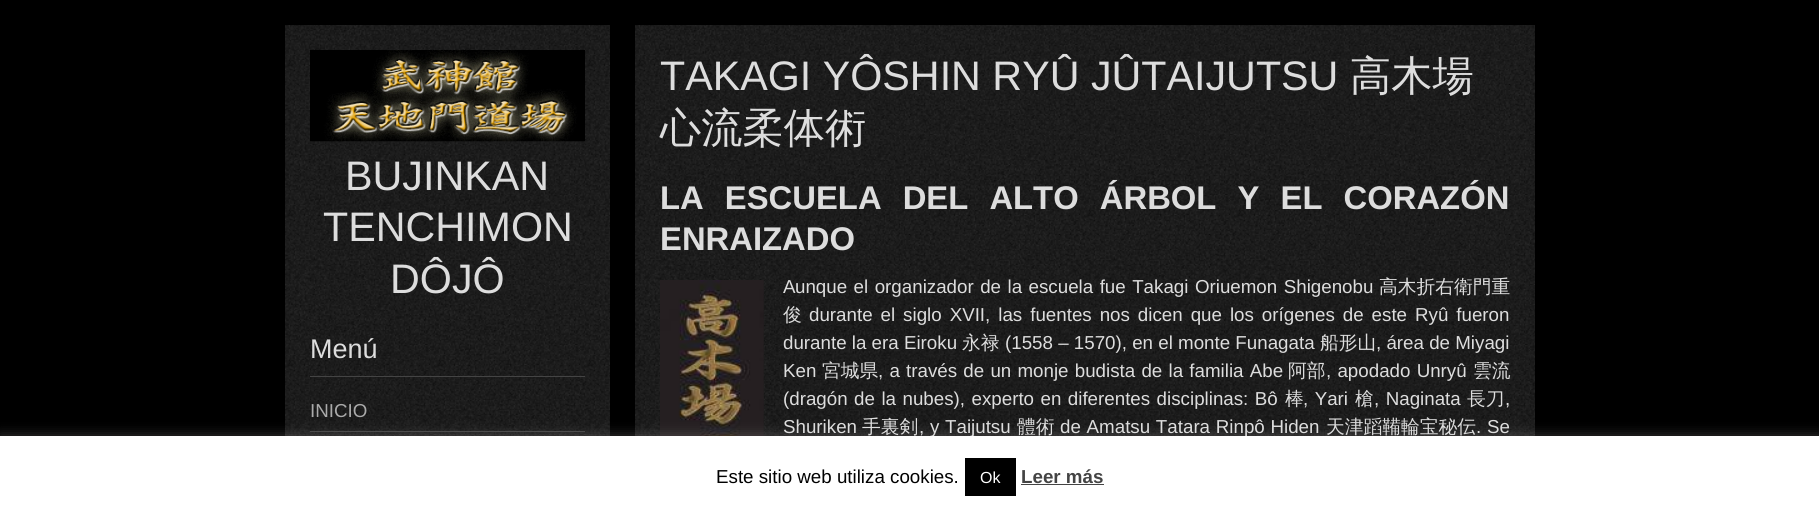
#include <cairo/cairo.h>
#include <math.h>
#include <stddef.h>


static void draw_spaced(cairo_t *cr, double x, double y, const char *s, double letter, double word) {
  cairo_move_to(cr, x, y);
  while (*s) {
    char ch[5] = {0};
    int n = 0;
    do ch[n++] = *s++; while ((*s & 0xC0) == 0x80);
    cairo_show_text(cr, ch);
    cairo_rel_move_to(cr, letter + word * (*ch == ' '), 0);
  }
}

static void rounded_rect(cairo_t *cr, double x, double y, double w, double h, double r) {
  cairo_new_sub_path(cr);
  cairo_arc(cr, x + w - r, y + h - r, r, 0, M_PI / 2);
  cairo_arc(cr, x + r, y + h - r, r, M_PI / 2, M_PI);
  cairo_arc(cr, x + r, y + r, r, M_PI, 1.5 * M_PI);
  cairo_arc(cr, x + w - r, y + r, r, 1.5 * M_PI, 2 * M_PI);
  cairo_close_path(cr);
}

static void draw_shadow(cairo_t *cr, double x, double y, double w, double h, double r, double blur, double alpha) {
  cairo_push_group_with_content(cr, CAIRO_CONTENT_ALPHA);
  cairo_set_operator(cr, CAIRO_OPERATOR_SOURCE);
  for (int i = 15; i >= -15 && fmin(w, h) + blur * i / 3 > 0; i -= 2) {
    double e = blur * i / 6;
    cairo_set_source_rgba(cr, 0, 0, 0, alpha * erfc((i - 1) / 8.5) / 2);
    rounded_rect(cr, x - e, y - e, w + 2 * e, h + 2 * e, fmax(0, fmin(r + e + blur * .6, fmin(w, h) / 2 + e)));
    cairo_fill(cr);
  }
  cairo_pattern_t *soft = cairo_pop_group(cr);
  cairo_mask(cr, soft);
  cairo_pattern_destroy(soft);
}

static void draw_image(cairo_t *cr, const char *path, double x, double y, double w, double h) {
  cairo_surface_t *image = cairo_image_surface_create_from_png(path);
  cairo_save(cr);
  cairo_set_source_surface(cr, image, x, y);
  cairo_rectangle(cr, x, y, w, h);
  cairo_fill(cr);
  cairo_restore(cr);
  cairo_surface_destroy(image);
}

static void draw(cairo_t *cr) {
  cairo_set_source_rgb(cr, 0, 0, 0);
  cairo_paint(cr);
  draw_image(cr, "images/1.png", 285, 25, 325, 411);
  draw_image(cr, "images/2.png", 310, 50, 275, 92);
  cairo_set_source_rgb(cr, 68 / 255.0, 68 / 255.0, 68 / 255.0);
  cairo_rectangle(cr, 310, 376, 275, 1);
  cairo_fill(cr);
  cairo_rectangle(cr, 310, 431, 275, 1);
  cairo_fill(cr);
  draw_image(cr, "images/3.png", 635, 25, 900, 411);
  draw_image(cr, "images/4.png", 660, 280, 104, 156);
  cairo_set_source_rgb(cr, 172 / 255.0, 171 / 255.0, 171 / 255.0);
  draw_shadow(cr, 0, 435, 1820, 75, 0, 6, 0.3);
  cairo_select_font_face(cr, "Liberation Sans", CAIRO_FONT_SLANT_NORMAL, CAIRO_FONT_WEIGHT_NORMAL);
  cairo_set_font_size(cr, 41.25);
  cairo_set_source_rgb(cr, 221 / 255.0, 221 / 255.0, 221 / 255.0);
  cairo_move_to(cr, 345, 190);
  cairo_show_text(cr, "BUJINKAN");
  cairo_move_to(cr, 323, 241);
  cairo_show_text(cr, "TENCHIMON");
  cairo_move_to(cr, 390, 293);
  cairo_show_text(cr, "DÔJÔ");
  cairo_set_font_size(cr, 27);
  cairo_move_to(cr, 310, 358);
  cairo_show_text(cr, "Menú");
  cairo_set_font_size(cr, 18.75);
  cairo_set_source_rgb(cr, 170 / 255.0, 170 / 255.0, 170 / 255.0);
  cairo_move_to(cr, 310, 417);
  cairo_show_text(cr, "INICIO");
  cairo_set_font_size(cr, 41.25);
  cairo_set_source_rgb(cr, 221 / 255.0, 221 / 255.0, 221 / 255.0);
  cairo_move_to(cr, 660, 90);
  cairo_show_text(cr, "TAKAGI YÔSHIN RYÛ JÛTAIJUTSU");
  cairo_select_font_face(cr, "WenQuanYi Zen Hei Medium", CAIRO_FONT_SLANT_NORMAL, CAIRO_FONT_WEIGHT_NORMAL);
  cairo_move_to(cr, 1350, 90);
  cairo_show_text(cr, "高木場");
  cairo_move_to(cr, 660, 142);
  cairo_show_text(cr, "心流柔体術");
  cairo_select_font_face(cr, "Liberation Sans", CAIRO_FONT_SLANT_NORMAL, CAIRO_FONT_WEIGHT_BOLD);
  cairo_set_font_size(cr, 32.8);
  draw_spaced(cr, 660, 209, "LA ESCUELA DEL ALTO ÁRBOL Y EL CORAZÓN", 0, 12);
  cairo_move_to(cr, 660, 250);
  cairo_show_text(cr, "ENRAIZADO");
  cairo_select_font_face(cr, "Liberation Sans", CAIRO_FONT_SLANT_NORMAL, CAIRO_FONT_WEIGHT_NORMAL);
  cairo_set_font_size(cr, 18.75);
  cairo_move_to(cr, 783, 293);
  cairo_show_text(cr, "A");
  draw_spaced(cr, 795, 293, "unque el organizador de la escuela fue Takagi Oriuemon Shigenobu", 0, 1.25);
  cairo_select_font_face(cr, "WenQuanYi Zen Hei Medium", CAIRO_FONT_SLANT_NORMAL, CAIRO_FONT_WEIGHT_NORMAL);
  cairo_move_to(cr, 1379, 293);
  cairo_show_text(cr, "高木折右衛門重");
  cairo_move_to(cr, 783, 321);
  cairo_show_text(cr, "俊");
  cairo_select_font_face(cr, "Liberation Sans", CAIRO_FONT_SLANT_NORMAL, CAIRO_FONT_WEIGHT_NORMAL);
  draw_spaced(cr, 809, 321, "durante el siglo XVII, las fuentes nos dicen que los orígenes de este Ryû fueron", 0, 2.75);
  cairo_move_to(cr, 783, 349);
  cairo_show_text(cr, "durante la era Eiroku");
  cairo_select_font_face(cr, "WenQuanYi Zen Hei Medium", CAIRO_FONT_SLANT_NORMAL, CAIRO_FONT_WEIGHT_NORMAL);
  cairo_move_to(cr, 962, 349);
  cairo_show_text(cr, "永禄");
  cairo_select_font_face(cr, "Liberation Sans", CAIRO_FONT_SLANT_NORMAL, CAIRO_FONT_WEIGHT_NORMAL);
  cairo_move_to(cr, 1005, 349);
  cairo_show_text(cr, "(1558 – 1570), en el monte Funagata");
  cairo_select_font_face(cr, "WenQuanYi Zen Hei Medium", CAIRO_FONT_SLANT_NORMAL, CAIRO_FONT_WEIGHT_NORMAL);
  cairo_move_to(cr, 1320, 349);
  cairo_show_text(cr, "船形山");
  cairo_select_font_face(cr, "Liberation Sans", CAIRO_FONT_SLANT_NORMAL, CAIRO_FONT_WEIGHT_NORMAL);
  cairo_move_to(cr, 1376, 349);
  cairo_show_text(cr, ", área de Miyagi");
  cairo_move_to(cr, 783, 377);
  cairo_show_text(cr, "Ken");
  cairo_select_font_face(cr, "WenQuanYi Zen Hei Medium", CAIRO_FONT_SLANT_NORMAL, CAIRO_FONT_WEIGHT_NORMAL);
  cairo_move_to(cr, 822, 377);
  cairo_show_text(cr, "宮城県");
  cairo_select_font_face(cr, "Liberation Sans", CAIRO_FONT_SLANT_NORMAL, CAIRO_FONT_WEIGHT_NORMAL);
  draw_spaced(cr, 878, 377, ", a través de un monje budista de la familia Abe", 0, 1);
  cairo_select_font_face(cr, "WenQuanYi Zen Hei Medium", CAIRO_FONT_SLANT_NORMAL, CAIRO_FONT_WEIGHT_NORMAL);
  cairo_move_to(cr, 1288, 377);
  cairo_show_text(cr, "阿部");
  cairo_select_font_face(cr, "Liberation Sans", CAIRO_FONT_SLANT_NORMAL, CAIRO_FONT_WEIGHT_NORMAL);
  draw_spaced(cr, 1326, 377, ", apodado Unryû", 0, 1);
  cairo_select_font_face(cr, "WenQuanYi Zen Hei Medium", CAIRO_FONT_SLANT_NORMAL, CAIRO_FONT_WEIGHT_NORMAL);
  cairo_move_to(cr, 1473, 377);
  cairo_show_text(cr, "雲流");
  cairo_select_font_face(cr, "Liberation Sans", CAIRO_FONT_SLANT_NORMAL, CAIRO_FONT_WEIGHT_NORMAL);
  draw_spaced(cr, 783, 405, "(dragón de la nubes), experto en diferentes disciplinas: Bô", 0, 1.25);
  cairo_select_font_face(cr, "WenQuanYi Zen Hei Medium", CAIRO_FONT_SLANT_NORMAL, CAIRO_FONT_WEIGHT_NORMAL);
  cairo_move_to(cr, 1285, 405);
  cairo_show_text(cr, "棒");
  cairo_select_font_face(cr, "Liberation Sans", CAIRO_FONT_SLANT_NORMAL, CAIRO_FONT_WEIGHT_NORMAL);
  draw_spaced(cr, 1303, 405, ", Yari", 0, 1.25);
  cairo_select_font_face(cr, "WenQuanYi Zen Hei Medium", CAIRO_FONT_SLANT_NORMAL, CAIRO_FONT_WEIGHT_NORMAL);
  cairo_move_to(cr, 1355, 405);
  cairo_show_text(cr, "槍");
  cairo_select_font_face(cr, "Liberation Sans", CAIRO_FONT_SLANT_NORMAL, CAIRO_FONT_WEIGHT_NORMAL);
  draw_spaced(cr, 1374, 405, ", Naginata", 0, 1.25);
  cairo_select_font_face(cr, "WenQuanYi Zen Hei Medium", CAIRO_FONT_SLANT_NORMAL, CAIRO_FONT_WEIGHT_NORMAL);
  cairo_move_to(cr, 1467, 405);
  cairo_show_text(cr, "長刀");
  cairo_select_font_face(cr, "Liberation Sans", CAIRO_FONT_SLANT_NORMAL, CAIRO_FONT_WEIGHT_NORMAL);
  cairo_move_to(cr, 1505, 405);
  cairo_show_text(cr, ",");
  cairo_move_to(cr, 783, 433);
  cairo_show_text(cr, "Shuriken");
  cairo_select_font_face(cr, "WenQuanYi Zen Hei Medium", CAIRO_FONT_SLANT_NORMAL, CAIRO_FONT_WEIGHT_NORMAL);
  cairo_move_to(cr, 862, 433);
  cairo_show_text(cr, "手裏剣");
  cairo_select_font_face(cr, "Liberation Sans", CAIRO_FONT_SLANT_NORMAL, CAIRO_FONT_WEIGHT_NORMAL);
  draw_spaced(cr, 919, 433, ", y Taijutsu", 0, 0.5);
  cairo_select_font_face(cr, "WenQuanYi Zen Hei Medium", CAIRO_FONT_SLANT_NORMAL, CAIRO_FONT_WEIGHT_NORMAL);
  cairo_move_to(cr, 1017, 433);
  cairo_show_text(cr, "體術");
  cairo_select_font_face(cr, "Liberation Sans", CAIRO_FONT_SLANT_NORMAL, CAIRO_FONT_WEIGHT_NORMAL);
  draw_spaced(cr, 1060, 433, "de Amatsu Tatara Rinpô Hiden", 0, 0.5);
  cairo_select_font_face(cr, "WenQuanYi Zen Hei Medium", CAIRO_FONT_SLANT_NORMAL, CAIRO_FONT_WEIGHT_NORMAL);
  cairo_move_to(cr, 1326, 433);
  cairo_show_text(cr, "天津蹈鞴輪宝秘伝");
  cairo_select_font_face(cr, "Liberation Sans", CAIRO_FONT_SLANT_NORMAL, CAIRO_FONT_WEIGHT_NORMAL);
  draw_spaced(cr, 1476, 433, ". Se", 0, 0.5);
  cairo_set_source_rgb(cr, 1, 1, 1);
  cairo_rectangle(cr, 0, 436, 1819, 75);
  cairo_fill(cr);
  cairo_set_source_rgb(cr, 0, 0, 0);
  cairo_move_to(cr, 716, 483);
  cairo_show_text(cr, "Este sitio web utiliza cookies.");
  cairo_rectangle(cr, 965, 458, 51, 38);
  cairo_fill(cr);
  cairo_set_font_size(cr, 16);
  cairo_set_source_rgb(cr, 1, 1, 1);
  cairo_move_to(cr, 980, 483);
  cairo_show_text(cr, "Ok");
  cairo_select_font_face(cr, "Liberation Sans", CAIRO_FONT_SLANT_NORMAL, CAIRO_FONT_WEIGHT_BOLD);
  cairo_set_font_size(cr, 18.75);
  cairo_set_source_rgb(cr, 68 / 255.0, 68 / 255.0, 68 / 255.0);
  cairo_move_to(cr, 1021, 483);
  cairo_show_text(cr, "Leer más");
  cairo_rectangle(cr, 1021, 484, 83, 1);
  cairo_fill(cr);
}

int main(void) {
  cairo_surface_t *surface = cairo_image_surface_create(CAIRO_FORMAT_RGB24, 1819, 511);
  cairo_t *cr = cairo_create(surface);
  cairo_font_options_t *options = cairo_font_options_create();
  cairo_font_options_set_hint_metrics(options, CAIRO_HINT_METRICS_OFF);
  cairo_font_options_set_hint_style(options, CAIRO_HINT_STYLE_NONE);
  cairo_set_font_options(cr, options);
  cairo_set_miter_limit(cr, 4);
  draw(cr);
  cairo_surface_write_to_png(surface, "out.png");
  cairo_font_options_destroy(options);
  cairo_destroy(cr);
  cairo_surface_destroy(surface);
  return 0;
}
